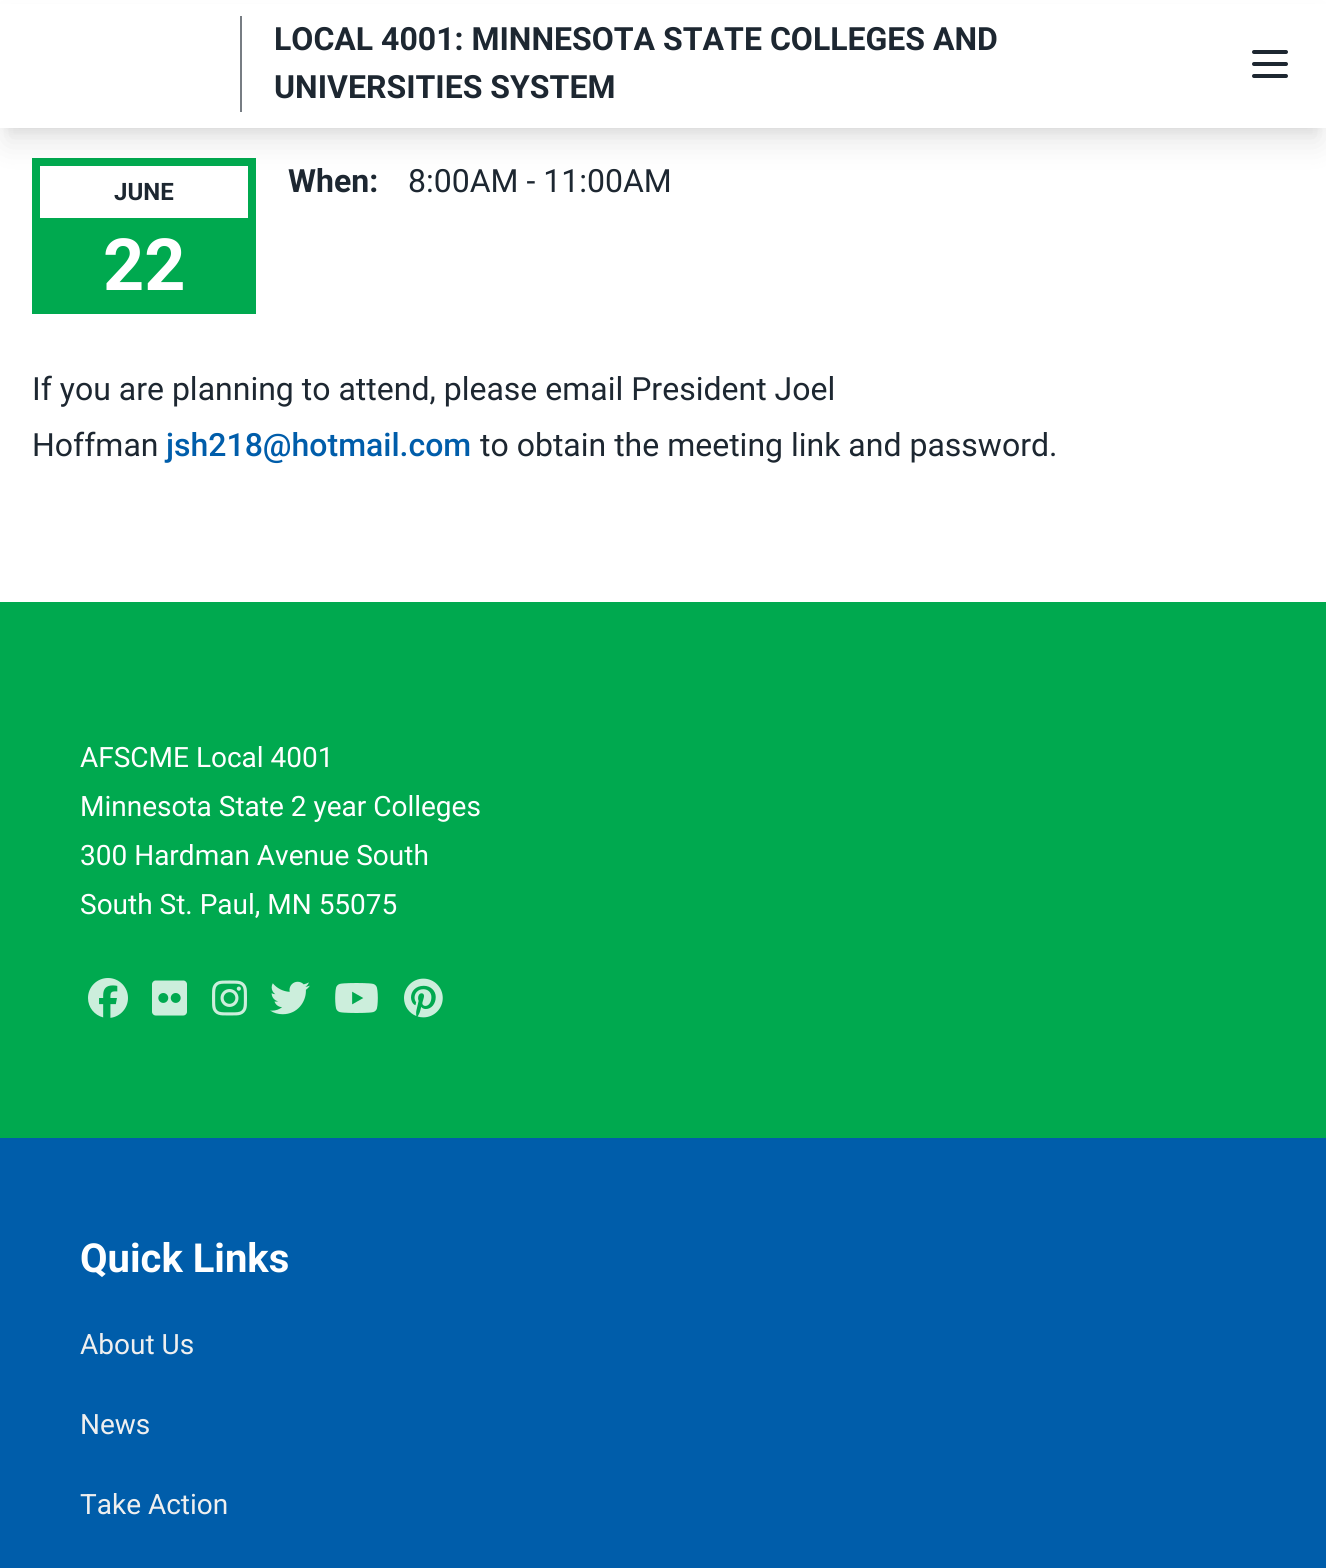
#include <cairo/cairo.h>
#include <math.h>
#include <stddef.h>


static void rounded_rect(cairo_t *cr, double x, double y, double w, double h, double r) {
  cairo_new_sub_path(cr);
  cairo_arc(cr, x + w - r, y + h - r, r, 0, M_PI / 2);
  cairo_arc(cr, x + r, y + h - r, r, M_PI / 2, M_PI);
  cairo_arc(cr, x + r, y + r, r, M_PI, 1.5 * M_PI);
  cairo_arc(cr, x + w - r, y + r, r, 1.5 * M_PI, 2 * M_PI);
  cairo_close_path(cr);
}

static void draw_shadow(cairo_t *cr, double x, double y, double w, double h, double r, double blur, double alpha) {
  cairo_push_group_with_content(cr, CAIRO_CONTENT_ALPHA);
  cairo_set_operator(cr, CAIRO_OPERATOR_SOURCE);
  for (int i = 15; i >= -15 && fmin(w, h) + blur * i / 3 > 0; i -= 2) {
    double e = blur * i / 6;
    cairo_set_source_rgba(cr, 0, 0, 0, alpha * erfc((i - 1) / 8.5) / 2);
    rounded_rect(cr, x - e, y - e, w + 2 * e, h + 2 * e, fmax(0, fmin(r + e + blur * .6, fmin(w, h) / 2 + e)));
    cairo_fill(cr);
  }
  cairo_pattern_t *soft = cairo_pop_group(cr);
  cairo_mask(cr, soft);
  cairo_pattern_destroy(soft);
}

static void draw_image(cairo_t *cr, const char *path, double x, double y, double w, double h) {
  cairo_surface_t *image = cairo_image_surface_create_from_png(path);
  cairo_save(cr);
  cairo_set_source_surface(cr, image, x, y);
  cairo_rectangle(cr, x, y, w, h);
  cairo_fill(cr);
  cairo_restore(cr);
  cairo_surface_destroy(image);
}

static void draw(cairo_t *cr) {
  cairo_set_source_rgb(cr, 1, 1, 1);
  cairo_paint(cr);
  cairo_set_source_rgb(cr, 0, 0, 0);
  draw_shadow(cr, 8, 16, 1310, 112, 0, 6, 0.1);
  cairo_set_source_rgb(cr, 0, 169 / 255.0, 79 / 255.0);
  cairo_rectangle(cr, 32, 158, 224, 156);
  cairo_fill(cr);
  cairo_set_source_rgb(cr, 1, 1, 1);
  cairo_rectangle(cr, 40, 166, 208, 52);
  cairo_fill(cr);
  cairo_set_source_rgb(cr, 0, 0, 0);
  draw_shadow(cr, 6, 26, 1314, 116, 0, 15, 0.1);
  cairo_set_source_rgb(cr, 1, 1, 1);
  cairo_rectangle(cr, 0, 4, 1326, 124);
  cairo_fill(cr);
  cairo_set_source_rgb(cr, 119 / 255.0, 125 / 255.0, 131 / 255.0);
  cairo_rectangle(cr, 240, 16, 2, 96);
  cairo_fill(cr);
  cairo_new_path(cr);
  cairo_move_to(cr, 1254, 52);
  cairo_line_to(cr, 1286, 52);
  cairo_move_to(cr, 1254, 64);
  cairo_line_to(cr, 1286, 64);
  cairo_move_to(cr, 1254, 76);
  cairo_line_to(cr, 1286, 76);
  cairo_set_source_rgb(cr, 29 / 255.0, 39 / 255.0, 49 / 255.0);
  cairo_set_line_width(cr, 4);
  cairo_set_line_cap(cr, CAIRO_LINE_CAP_ROUND);
  cairo_set_line_join(cr, CAIRO_LINE_JOIN_ROUND);
  cairo_stroke(cr);
  cairo_set_source_rgb(cr, 0, 169 / 255.0, 79 / 255.0);
  cairo_rectangle(cr, 0, 602, 1326, 536);
  cairo_fill(cr);
  draw_image(cr, "images/1.png", 88, 978, 40, 40);
  draw_image(cr, "images/2.png", 152, 980, 35, 36);
  draw_image(cr, "images/3.png", 212, 980, 35, 36);
  draw_image(cr, "images/4.png", 270, 981, 40, 34);
  draw_image(cr, "images/5.png", 335, 983, 43, 30);
  draw_image(cr, "images/6.png", 404, 978, 39, 40);
  cairo_set_source_rgb(cr, 0, 93 / 255.0, 170 / 255.0);
  cairo_rectangle(cr, 0, 1138, 1326, 430);
  cairo_fill(cr);
  cairo_select_font_face(cr, "Roboto", CAIRO_FONT_SLANT_NORMAL, CAIRO_FONT_WEIGHT_BOLD);
  cairo_set_font_size(cr, 32);
  cairo_set_source_rgb(cr, 29 / 255.0, 39 / 255.0, 49 / 255.0);
  cairo_move_to(cr, 274, 50);
  cairo_show_text(cr, "LOCAL 4001: MINNESOTA STATE COLLEGES AND");
  cairo_move_to(cr, 274, 98);
  cairo_show_text(cr, "UNIVERSITIES SYSTEM");
  cairo_set_font_size(cr, 24);
  cairo_move_to(cr, 114, 200);
  cairo_show_text(cr, "JUNE");
  cairo_set_font_size(cr, 72);
  cairo_set_source_rgb(cr, 1, 1, 1);
  cairo_move_to(cr, 103, 290);
  cairo_show_text(cr, "22");
  cairo_set_font_size(cr, 32);
  cairo_set_source_rgb(cr, 29 / 255.0, 39 / 255.0, 49 / 255.0);
  cairo_move_to(cr, 288, 192);
  cairo_show_text(cr, "When:");
  cairo_select_font_face(cr, "Roboto", CAIRO_FONT_SLANT_NORMAL, CAIRO_FONT_WEIGHT_NORMAL);
  cairo_move_to(cr, 408, 192);
  cairo_show_text(cr, "8:00AM - 11:00AM");
  cairo_move_to(cr, 32, 400);
  cairo_show_text(cr, "If you are planning to attend, please email President Joel");
  cairo_move_to(cr, 32, 456);
  cairo_show_text(cr, "Hoffman");
  cairo_select_font_face(cr, "Roboto Medium", CAIRO_FONT_SLANT_NORMAL, CAIRO_FONT_WEIGHT_NORMAL);
  cairo_set_source_rgb(cr, 0, 93 / 255.0, 170 / 255.0);
  cairo_move_to(cr, 166, 456);
  cairo_show_text(cr, "jsh218@hotmail.com");
  cairo_select_font_face(cr, "Roboto", CAIRO_FONT_SLANT_NORMAL, CAIRO_FONT_WEIGHT_NORMAL);
  cairo_set_source_rgb(cr, 29 / 255.0, 39 / 255.0, 49 / 255.0);
  cairo_move_to(cr, 480, 456);
  cairo_show_text(cr, "to obtain the meeting link and password.");
  cairo_set_font_size(cr, 28);
  cairo_set_source_rgb(cr, 1, 1, 1);
  cairo_move_to(cr, 80, 767);
  cairo_show_text(cr, "AFSCME Local 4001");
  cairo_move_to(cr, 80, 816);
  cairo_show_text(cr, "Minnesota State 2 year Colleges");
  cairo_move_to(cr, 80, 865);
  cairo_show_text(cr, "300 Hardman Avenue South");
  cairo_move_to(cr, 80, 914);
  cairo_show_text(cr, "South St. Paul, MN 55075");
  cairo_select_font_face(cr, "Roboto", CAIRO_FONT_SLANT_NORMAL, CAIRO_FONT_WEIGHT_BOLD);
  cairo_set_font_size(cr, 40);
  cairo_move_to(cr, 80, 1272);
  cairo_show_text(cr, "Quick Links");
  cairo_select_font_face(cr, "Roboto", CAIRO_FONT_SLANT_NORMAL, CAIRO_FONT_WEIGHT_NORMAL);
  cairo_set_font_size(cr, 28);
  cairo_set_source_rgb(cr, 239 / 255.0, 239 / 255.0, 239 / 255.0);
  cairo_move_to(cr, 80, 1354);
  cairo_show_text(cr, "About Us");
  cairo_move_to(cr, 80, 1434);
  cairo_show_text(cr, "News");
  cairo_move_to(cr, 80, 1514);
  cairo_show_text(cr, "Take Action");
}

int main(void) {
  cairo_surface_t *surface = cairo_image_surface_create(CAIRO_FORMAT_RGB24, 1326, 1568);
  cairo_t *cr = cairo_create(surface);
  cairo_font_options_t *options = cairo_font_options_create();
  cairo_font_options_set_hint_metrics(options, CAIRO_HINT_METRICS_OFF);
  cairo_font_options_set_hint_style(options, CAIRO_HINT_STYLE_NONE);
  cairo_set_font_options(cr, options);
  cairo_set_miter_limit(cr, 4);
  draw(cr);
  cairo_surface_write_to_png(surface, "out.png");
  cairo_font_options_destroy(options);
  cairo_destroy(cr);
  cairo_surface_destroy(surface);
  return 0;
}
